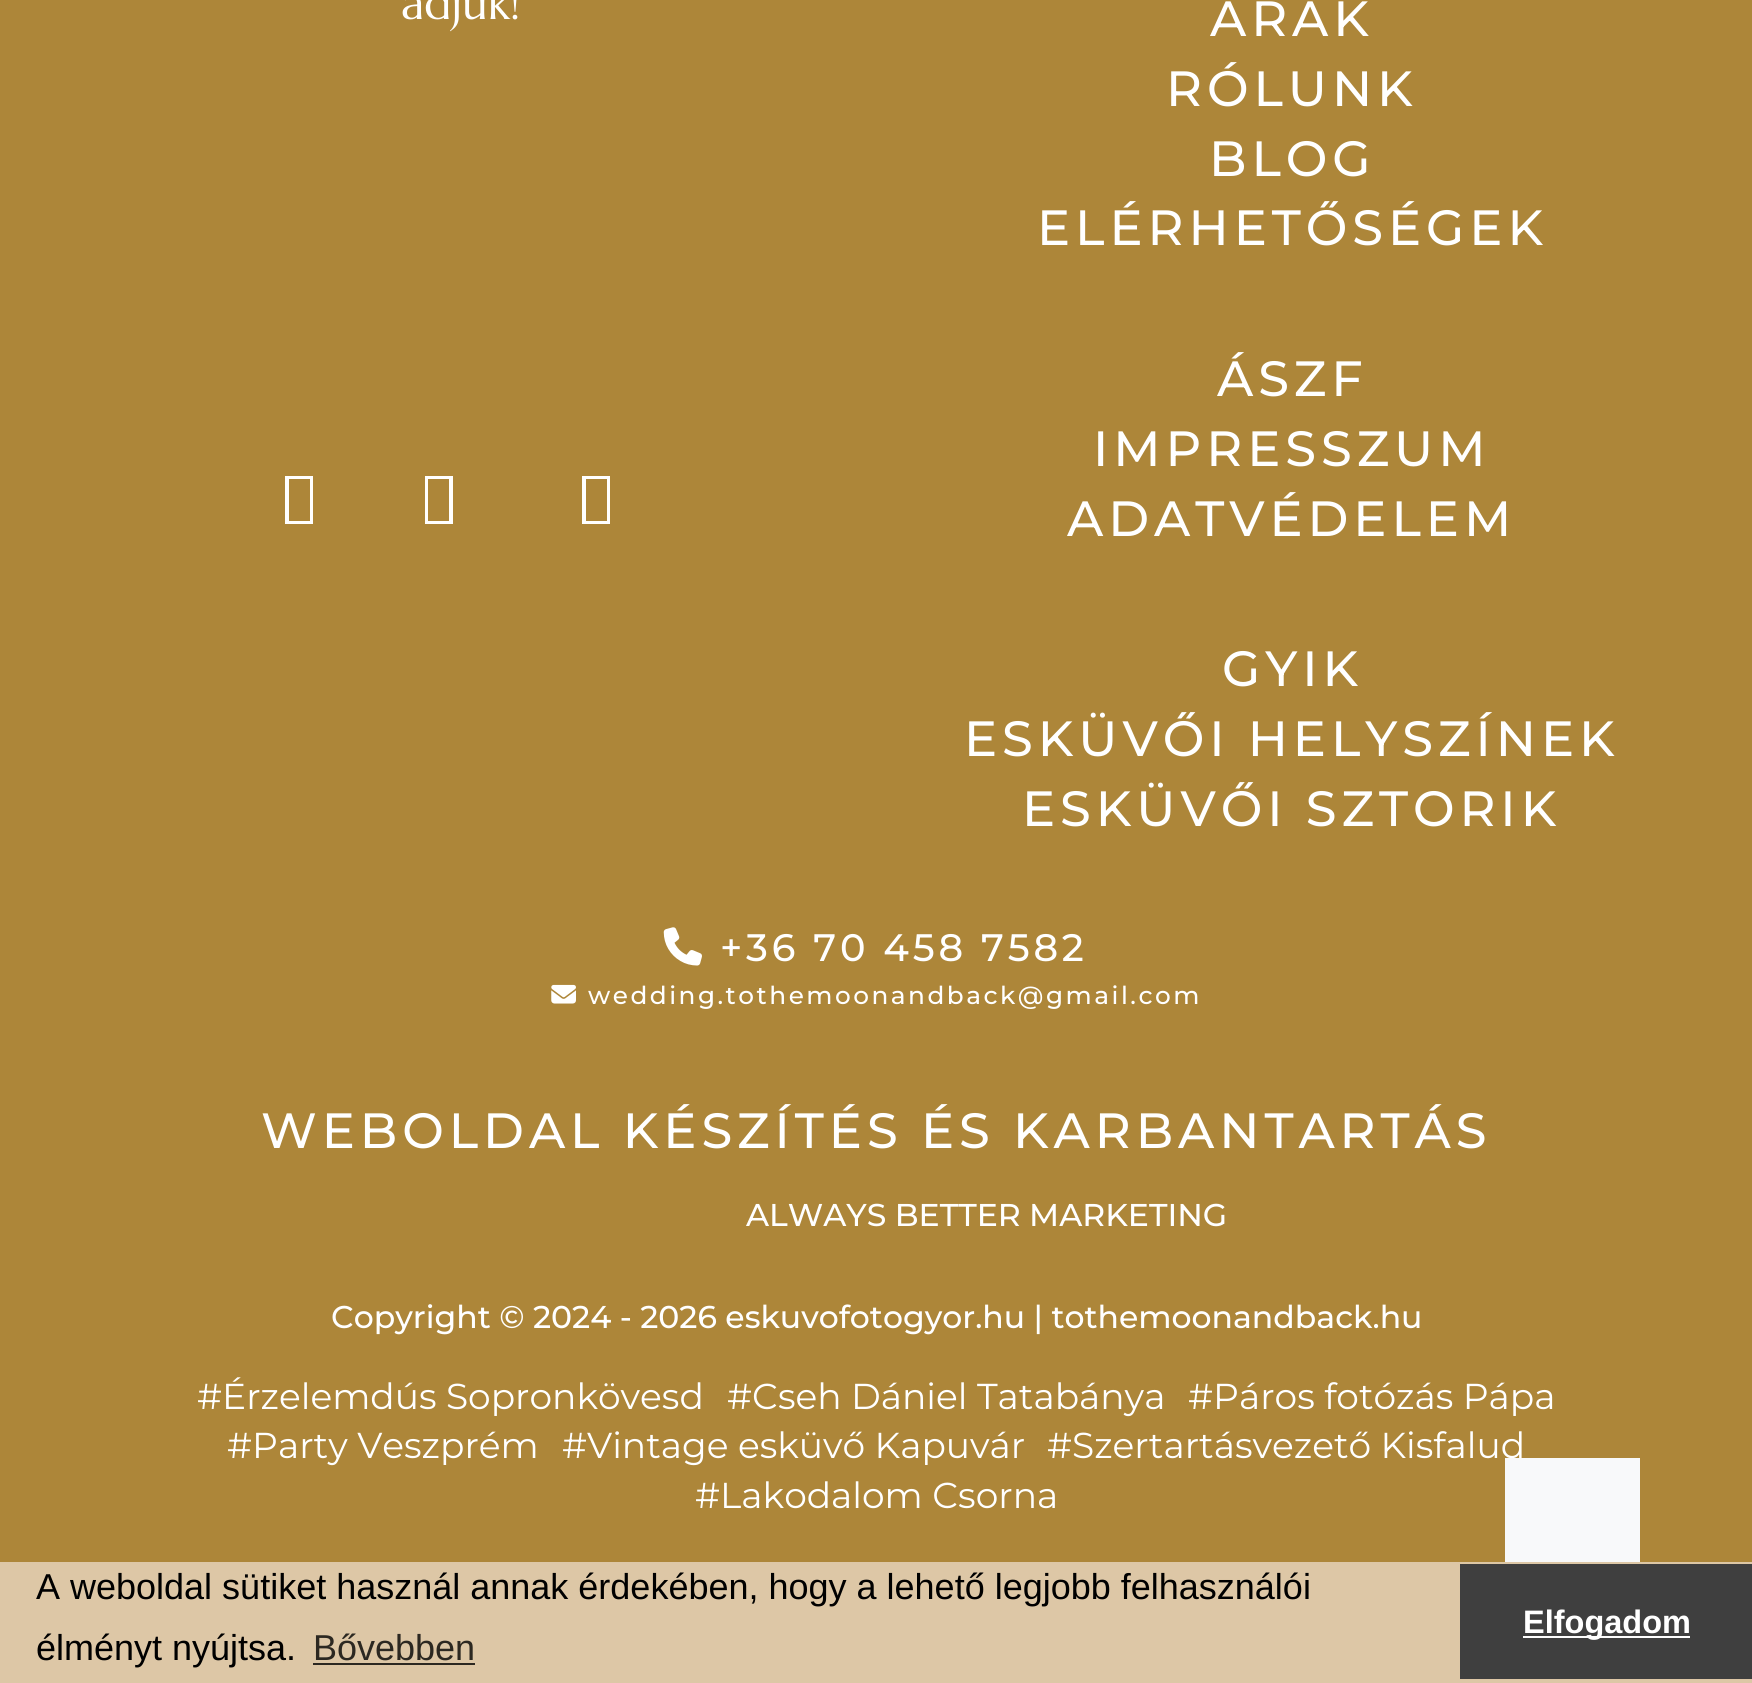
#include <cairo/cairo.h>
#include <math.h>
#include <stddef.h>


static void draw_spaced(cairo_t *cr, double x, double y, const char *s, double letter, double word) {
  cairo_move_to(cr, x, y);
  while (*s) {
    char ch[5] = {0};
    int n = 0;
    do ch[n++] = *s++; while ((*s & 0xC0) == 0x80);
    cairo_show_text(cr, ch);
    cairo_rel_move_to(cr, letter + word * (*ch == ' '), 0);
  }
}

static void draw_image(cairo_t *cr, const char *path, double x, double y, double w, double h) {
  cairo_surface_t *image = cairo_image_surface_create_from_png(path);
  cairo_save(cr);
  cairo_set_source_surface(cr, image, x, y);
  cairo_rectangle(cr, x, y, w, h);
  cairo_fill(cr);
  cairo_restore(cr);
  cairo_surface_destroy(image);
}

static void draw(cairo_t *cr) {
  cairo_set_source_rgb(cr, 173 / 255.0, 134 / 255.0, 57 / 255.0);
  cairo_paint(cr);
  cairo_set_source_rgb(cr, 1, 1, 1);
  cairo_new_path(cr);
  cairo_move_to(cr, 285, 524);
  cairo_line_to(cr, 285, 476);
  cairo_line_to(cr, 313, 476);
  cairo_line_to(cr, 313, 524);
  cairo_close_path(cr);
  cairo_move_to(cr, 289, 521);
  cairo_line_to(cr, 310, 521);
  cairo_line_to(cr, 310, 479);
  cairo_line_to(cr, 289, 479);
  cairo_close_path(cr);
  cairo_fill(cr);
  cairo_new_path(cr);
  cairo_move_to(cr, 425, 524);
  cairo_line_to(cr, 425, 476);
  cairo_line_to(cr, 453, 476);
  cairo_line_to(cr, 453, 524);
  cairo_close_path(cr);
  cairo_move_to(cr, 428, 521);
  cairo_line_to(cr, 449, 521);
  cairo_line_to(cr, 449, 479);
  cairo_line_to(cr, 428, 479);
  cairo_close_path(cr);
  cairo_fill(cr);
  cairo_new_path(cr);
  cairo_move_to(cr, 582, 524);
  cairo_line_to(cr, 582, 476);
  cairo_line_to(cr, 610, 476);
  cairo_line_to(cr, 610, 524);
  cairo_close_path(cr);
  cairo_move_to(cr, 586, 521);
  cairo_line_to(cr, 607, 521);
  cairo_line_to(cr, 607, 479);
  cairo_line_to(cr, 586, 479);
  cairo_close_path(cr);
  cairo_fill(cr);
  draw_image(cr, "images/1.png", 663, 927, 39, 39);
  draw_image(cr, "images/2.png", 551, 984, 25, 20);
  cairo_set_source_rgb(cr, 221 / 255.0, 199 / 255.0, 166 / 255.0);
  cairo_rectangle(cr, 0, 1562, 1752, 121);
  cairo_fill(cr);
  cairo_set_source_rgb(cr, 44 / 255.0, 40 / 255.0, 33 / 255.0);
  cairo_rectangle(cr, 313, 1663, 162, 2);
  cairo_fill(cr);
  cairo_set_source_rgb(cr, 63 / 255.0, 63 / 255.0, 63 / 255.0);
  cairo_rectangle(cr, 1460, 1564, 292, 115);
  cairo_fill(cr);
  cairo_set_source_rgb(cr, 1, 1, 1);
  cairo_rectangle(cr, 1523, 1636, 167, 2);
  cairo_fill(cr);
  cairo_select_font_face(cr, "Marcellus", CAIRO_FONT_SLANT_NORMAL, CAIRO_FONT_WEIGHT_NORMAL);
  cairo_set_font_size(cr, 45);
  cairo_move_to(cr, 401, 19);
  cairo_show_text(cr, "adjuk!");
  cairo_select_font_face(cr, "Montserrat Thin", CAIRO_FONT_SLANT_NORMAL, CAIRO_FONT_WEIGHT_NORMAL);
  cairo_set_font_size(cr, 49.5);
  draw_spaced(cr, 1210, 36, "ÁRAK", 4.95, 0);
  draw_spaced(cr, 1166, 106, "RÓLUNK", 4.95, 0);
  draw_spaced(cr, 1209, 176, "BLOG", 4.95, 0);
  draw_spaced(cr, 1037, 245, "ELÉRHETŐSÉGEK", 4.95, 0);
  draw_spaced(cr, 1217, 396, "ÁSZF", 4.95, 0);
  draw_spaced(cr, 1093, 466, "IMPRESSZUM", 4.95, 0);
  draw_spaced(cr, 1067, 536, "ADATVÉDELEM", 4.95, 0);
  draw_spaced(cr, 1222, 686, "GYIK", 4.95, 0);
  draw_spaced(cr, 964, 756, "ESKÜVŐI HELYSZÍNEK", 4.95, 0);
  draw_spaced(cr, 1022, 826, "ESKÜVŐI SZTORIK", 4.95, 0);
  cairo_set_font_size(cr, 38.25);
  draw_spaced(cr, 720, 961, "+36 70 458 7582", 3.8, 0);
  cairo_set_font_size(cr, 24.75);
  draw_spaced(cr, 588, 1004, "wedding.tothemoonandback@gmail.com", 2.5, 0);
  cairo_set_font_size(cr, 49.5);
  draw_spaced(cr, 261, 1148, "WEBOLDAL KÉSZÍTÉS ÉS KARBANTARTÁS", 4.95, 0);
  cairo_set_font_size(cr, 31.5);
  cairo_move_to(cr, 746, 1226);
  cairo_show_text(cr, "ALWAYS BETTER MARKETING");
  cairo_move_to(cr, 331, 1328);
  cairo_show_text(cr, "Copyright © 2024 - 2026 eskuvofotogyor.hu | tothemoonandback.hu");
  cairo_select_font_face(cr, "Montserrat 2 Thin", CAIRO_FONT_SLANT_NORMAL, CAIRO_FONT_WEIGHT_NORMAL);
  cairo_set_font_size(cr, 36);
  cairo_move_to(cr, 197, 1409);
  cairo_show_text(cr, "#Érzelemdús Sopronkövesd");
  cairo_move_to(cr, 727, 1409);
  cairo_show_text(cr, "#Cseh Dániel Tatabánya");
  cairo_move_to(cr, 1188, 1409);
  cairo_show_text(cr, "#Páros fotózás Pápa");
  cairo_move_to(cr, 227, 1458);
  cairo_show_text(cr, "#Party Veszprém");
  cairo_move_to(cr, 562, 1458);
  cairo_show_text(cr, "#Vintage esküvő Kapuvár");
  cairo_move_to(cr, 1047, 1458);
  cairo_show_text(cr, "#Szertartásvezető Kisfalud");
  cairo_move_to(cr, 695, 1508);
  cairo_show_text(cr, "#Lakodalom Csorna");
  cairo_set_source_rgb(cr, 248 / 255.0, 249 / 255.0, 250 / 255.0);
  cairo_rectangle(cr, 1505, 1458, 135, 104);
  cairo_fill(cr);
  cairo_select_font_face(cr, "Liberation Sans", CAIRO_FONT_SLANT_NORMAL, CAIRO_FONT_WEIGHT_NORMAL);
  cairo_set_source_rgb(cr, 0, 0, 0);
  cairo_move_to(cr, 36, 1599);
  cairo_show_text(cr, "A weboldal sütiket használ annak érdekében, hogy a lehető legjobb felhasználói");
  cairo_move_to(cr, 36, 1660);
  cairo_show_text(cr, "élményt nyújtsa.");
  cairo_set_source_rgb(cr, 44 / 255.0, 40 / 255.0, 33 / 255.0);
  cairo_move_to(cr, 313, 1660);
  cairo_show_text(cr, "Bővebben");
  cairo_select_font_face(cr, "Liberation Sans", CAIRO_FONT_SLANT_NORMAL, CAIRO_FONT_WEIGHT_BOLD);
  cairo_set_font_size(cr, 32.5);
  cairo_set_source_rgb(cr, 1, 1, 1);
  cairo_move_to(cr, 1523, 1633);
  cairo_show_text(cr, "Elfogadom");
}

int main(void) {
  cairo_surface_t *surface = cairo_image_surface_create(CAIRO_FORMAT_RGB24, 1752, 1683);
  cairo_t *cr = cairo_create(surface);
  cairo_font_options_t *options = cairo_font_options_create();
  cairo_font_options_set_hint_metrics(options, CAIRO_HINT_METRICS_OFF);
  cairo_font_options_set_hint_style(options, CAIRO_HINT_STYLE_NONE);
  cairo_set_font_options(cr, options);
  cairo_set_miter_limit(cr, 4);
  draw(cr);
  cairo_surface_write_to_png(surface, "out.png");
  cairo_font_options_destroy(options);
  cairo_destroy(cr);
  cairo_surface_destroy(surface);
  return 0;
}
